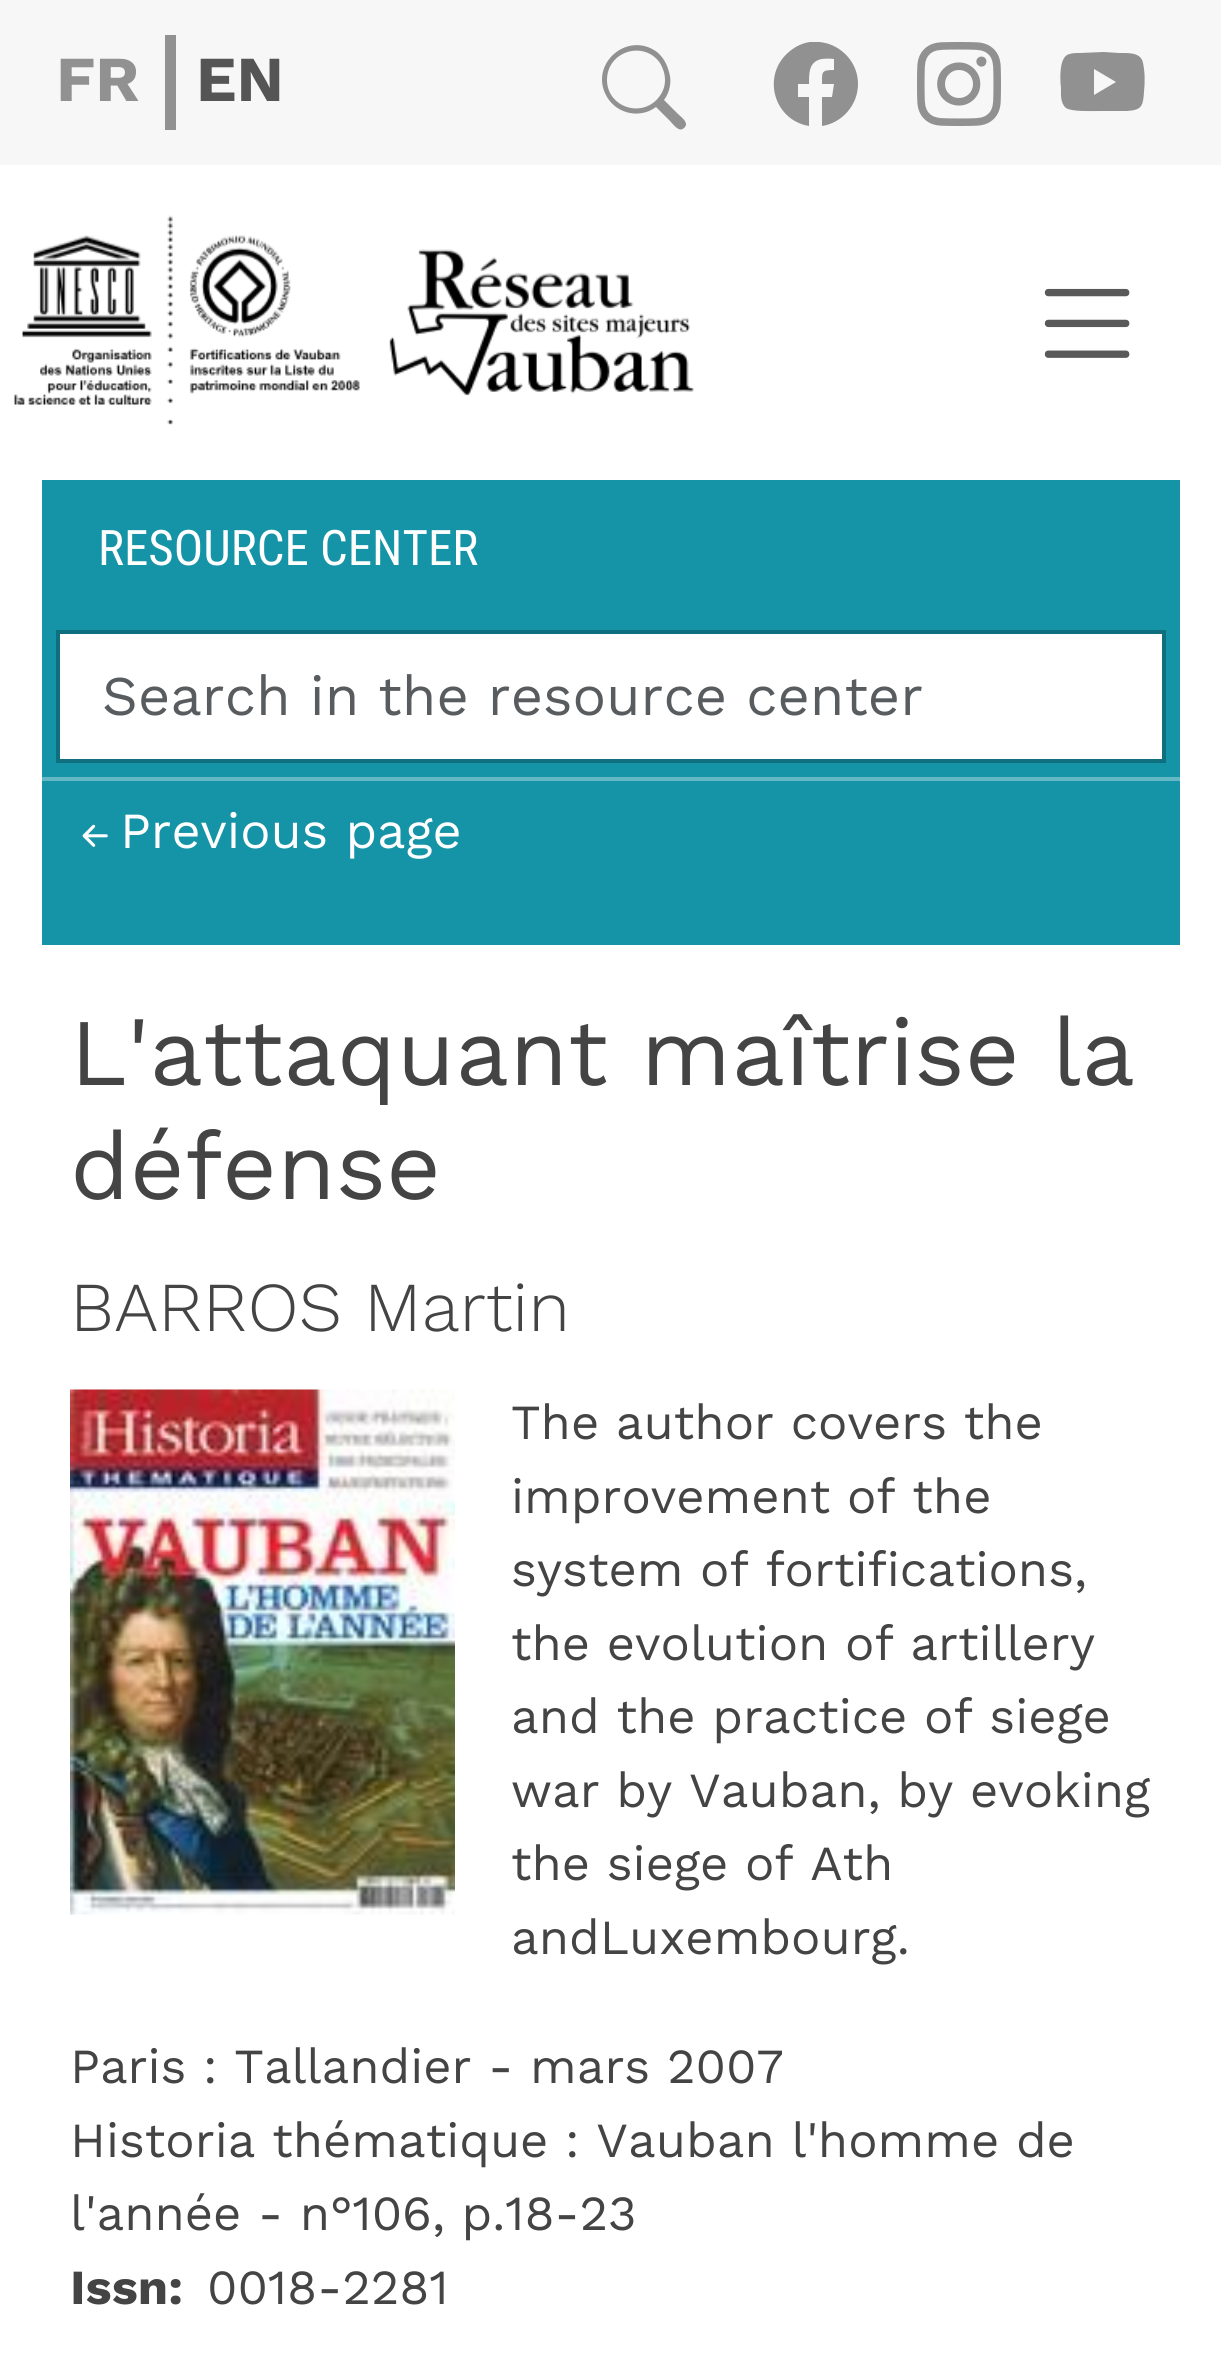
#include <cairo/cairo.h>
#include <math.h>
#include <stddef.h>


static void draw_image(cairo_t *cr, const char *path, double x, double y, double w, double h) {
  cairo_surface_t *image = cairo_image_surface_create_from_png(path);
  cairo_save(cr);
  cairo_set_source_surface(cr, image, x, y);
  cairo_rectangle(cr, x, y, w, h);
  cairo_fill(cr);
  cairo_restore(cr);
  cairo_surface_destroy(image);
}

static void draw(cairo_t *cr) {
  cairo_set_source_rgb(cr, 1, 1, 1);
  cairo_paint(cr);
  cairo_set_source_rgb(cr, 247 / 255.0, 247 / 255.0, 247 / 255.0);
  cairo_rectangle(cr, 0, 0, 1221, 165);
  cairo_fill(cr);
  cairo_set_source_rgb(cr, 145 / 255.0, 145 / 255.0, 145 / 255.0);
  cairo_rectangle(cr, 165, 35, 11, 95);
  cairo_fill(cr);
  cairo_new_path(cr);
  cairo_move_to(cr, 664, 100);
  cairo_curve_to(cr, 670, 92, 672, 81, 669, 72);
  cairo_curve_to(cr, 667, 64, 663, 57, 657, 52);
  cairo_curve_to(cr, 627, 30, 588, 65, 607, 97);
  cairo_curve_to(cr, 617, 114, 640, 119, 656, 107);
  cairo_line_to(cr, 670, 121);
  cairo_curve_to(cr, 673, 124, 679, 133, 684, 128);
  cairo_curve_to(cr, 690, 123, 681, 117, 678, 114);
  cairo_close_path(cr);
  cairo_move_to(cr, 665, 80);
  cairo_curve_to(cr, 665, 86, 663, 92, 659, 97);
  cairo_curve_to(cr, 642, 119, 607, 107, 607, 80);
  cairo_curve_to(cr, 607, 51, 644, 40, 660, 63);
  cairo_curve_to(cr, 663, 68, 665, 74, 665, 80);
  cairo_close_path(cr);
  cairo_fill(cr);
  cairo_save(cr);
  cairo_rectangle(cr, 770, 42, 88, 84);
  cairo_clip(cr);
  cairo_new_path(cr);
  cairo_move_to(cr, 858, 84);
  cairo_curve_to(cr, 858, 70, 851, 57, 839, 49);
  cairo_curve_to(cr, 830, 43, 820, 41, 810, 42);
  cairo_curve_to(cr, 803, 43, 796, 46, 790, 51);
  cairo_curve_to(cr, 761, 74, 773, 120, 809, 126);
  cairo_line_to(cr, 809, 97);
  cairo_line_to(cr, 798, 97);
  cairo_line_to(cr, 798, 84);
  cairo_line_to(cr, 809, 84);
  cairo_curve_to(cr, 809, 79, 809, 74, 810, 70);
  cairo_curve_to(cr, 813, 58, 824, 58, 834, 59);
  cairo_line_to(cr, 834, 70);
  cairo_curve_to(cr, 821, 70, 822, 72, 822, 84);
  cairo_line_to(cr, 834, 84);
  cairo_line_to(cr, 832, 97);
  cairo_line_to(cr, 822, 97);
  cairo_line_to(cr, 822, 126);
  cairo_curve_to(cr, 842, 123, 858, 105, 858, 84);
  cairo_close_path(cr);
  cairo_fill(cr);
  cairo_restore(cr);
  draw_image(cr, "images/1.png", 917, 42, 84, 84);
  cairo_new_path(cr);
  cairo_move_to(cr, 1103, 52);
  cairo_line_to(cr, 1119, 53);
  cairo_curve_to(cr, 1128, 53, 1141, 52, 1143, 63);
  cairo_curve_to(cr, 1145, 72, 1145, 82, 1144, 92);
  cairo_curve_to(cr, 1143, 106, 1142, 110, 1127, 111);
  cairo_line_to(cr, 1100, 111);
  cairo_curve_to(cr, 1093, 111, 1072, 112, 1066, 108);
  cairo_curve_to(cr, 1060, 103, 1061, 94, 1061, 88);
  cairo_curve_to(cr, 1060, 80, 1059, 60, 1067, 55);
  cairo_curve_to(cr, 1071, 53, 1075, 53, 1079, 53);
  cairo_close_path(cr);
  cairo_move_to(cr, 1094, 69);
  cairo_line_to(cr, 1094, 95);
  cairo_line_to(cr, 1116, 82);
  cairo_close_path(cr);
  cairo_fill(cr);
  draw_image(cr, "images/2.png", 14, 215, 680, 210);
  draw_image(cr, "images/3.png", 1044, 288, 86, 70);
  cairo_set_source_rgb(cr, 22 / 255.0, 148 / 255.0, 167 / 255.0);
  cairo_rectangle(cr, 42, 480, 1138, 465);
  cairo_fill(cr);
  cairo_set_source_rgb(cr, 1, 1, 1);
  cairo_rectangle(cr, 58, 632, 1106, 129);
  cairo_fill_preserve(cr);
  cairo_set_source_rgb(cr, 16 / 255.0, 111 / 255.0, 126 / 255.0);
  cairo_set_line_width(cr, 4);
  cairo_stroke(cr);
  cairo_set_source_rgb(cr, 100 / 255.0, 184 / 255.0, 196 / 255.0);
  cairo_rectangle(cr, 42, 777, 1138, 4);
  cairo_fill(cr);
  draw_image(cr, "images/4.png", 82, 824, 26, 23);
  draw_image(cr, "images/5.png", 70, 1389, 385, 526);
  cairo_select_font_face(cr, "Work Sans", CAIRO_FONT_SLANT_NORMAL, CAIRO_FONT_WEIGHT_BOLD);
  cairo_set_font_size(cr, 64);
  cairo_set_source_rgb(cr, 145 / 255.0, 145 / 255.0, 145 / 255.0);
  cairo_move_to(cr, 56, 101);
  cairo_show_text(cr, "FR");
  cairo_set_source_rgb(cr, 85 / 255.0, 85 / 255.0, 85 / 255.0);
  cairo_move_to(cr, 196, 101);
  cairo_show_text(cr, "EN");
  cairo_select_font_face(cr, "Roboto Condensed", CAIRO_FONT_SLANT_NORMAL, CAIRO_FONT_WEIGHT_NORMAL);
  cairo_set_font_size(cr, 49);
  cairo_set_source_rgb(cr, 1, 1, 1);
  cairo_move_to(cr, 98, 565);
  cairo_show_text(cr, "RESOURCE CENTER");
  cairo_select_font_face(cr, "Work Sans", CAIRO_FONT_SLANT_NORMAL, CAIRO_FONT_WEIGHT_NORMAL);
  cairo_set_font_size(cr, 56);
  cairo_set_source_rgb(cr, 89 / 255.0, 92 / 255.0, 95 / 255.0);
  cairo_move_to(cr, 102, 715);
  cairo_show_text(cr, "Search in the resource center");
  cairo_set_font_size(cr, 50.5);
  cairo_set_source_rgb(cr, 1, 1, 1);
  cairo_move_to(cr, 120, 848);
  cairo_show_text(cr, "Previous page");
  cairo_set_font_size(cr, 95.25);
  cairo_set_source_rgb(cr, 68 / 255.0, 68 / 255.0, 68 / 255.0);
  cairo_move_to(cr, 70, 1085);
  cairo_show_text(cr, "L'attaquant maîtrise la");
  cairo_move_to(cr, 70, 1199);
  cairo_show_text(cr, "défense");
  cairo_select_font_face(cr, "Work Sans Light", CAIRO_FONT_SLANT_NORMAL, CAIRO_FONT_WEIGHT_NORMAL);
  cairo_set_font_size(cr, 70);
  cairo_move_to(cr, 70, 1331);
  cairo_show_text(cr, "BARROS Martin");
  cairo_select_font_face(cr, "Work Sans", CAIRO_FONT_SLANT_NORMAL, CAIRO_FONT_WEIGHT_NORMAL);
  cairo_set_font_size(cr, 49);
  cairo_move_to(cr, 511, 1439);
  cairo_show_text(cr, "The author covers the");
  cairo_move_to(cr, 511, 1513);
  cairo_show_text(cr, "improvement of the");
  cairo_move_to(cr, 511, 1586);
  cairo_show_text(cr, "system of fortifications,");
  cairo_move_to(cr, 511, 1660);
  cairo_show_text(cr, "the evolution of artillery");
  cairo_move_to(cr, 511, 1733);
  cairo_show_text(cr, "and the practice of siege");
  cairo_move_to(cr, 511, 1807);
  cairo_show_text(cr, "war by Vauban, by evoking");
  cairo_move_to(cr, 511, 1880);
  cairo_show_text(cr, "the siege of Ath");
  cairo_move_to(cr, 511, 1954);
  cairo_show_text(cr, "andLuxembourg.");
  cairo_move_to(cr, 70, 2083);
  cairo_show_text(cr, "Paris : Tallandier - mars 2007");
  cairo_move_to(cr, 70, 2157);
  cairo_show_text(cr, "Historia thématique : Vauban l'homme de");
  cairo_move_to(cr, 70, 2230);
  cairo_show_text(cr, "l'année - n°106, p.18-23");
  cairo_select_font_face(cr, "Work Sans", CAIRO_FONT_SLANT_NORMAL, CAIRO_FONT_WEIGHT_BOLD);
  cairo_move_to(cr, 70, 2304);
  cairo_show_text(cr, "Issn:");
  cairo_select_font_face(cr, "Work Sans", CAIRO_FONT_SLANT_NORMAL, CAIRO_FONT_WEIGHT_NORMAL);
  cairo_move_to(cr, 207, 2304);
  cairo_show_text(cr, "0018-2281");
}

int main(void) {
  cairo_surface_t *surface = cairo_image_surface_create(CAIRO_FORMAT_RGB24, 1221, 2363);
  cairo_t *cr = cairo_create(surface);
  cairo_font_options_t *options = cairo_font_options_create();
  cairo_font_options_set_hint_metrics(options, CAIRO_HINT_METRICS_OFF);
  cairo_font_options_set_hint_style(options, CAIRO_HINT_STYLE_NONE);
  cairo_set_font_options(cr, options);
  cairo_set_miter_limit(cr, 4);
  draw(cr);
  cairo_surface_write_to_png(surface, "out.png");
  cairo_font_options_destroy(options);
  cairo_destroy(cr);
  cairo_surface_destroy(surface);
  return 0;
}
